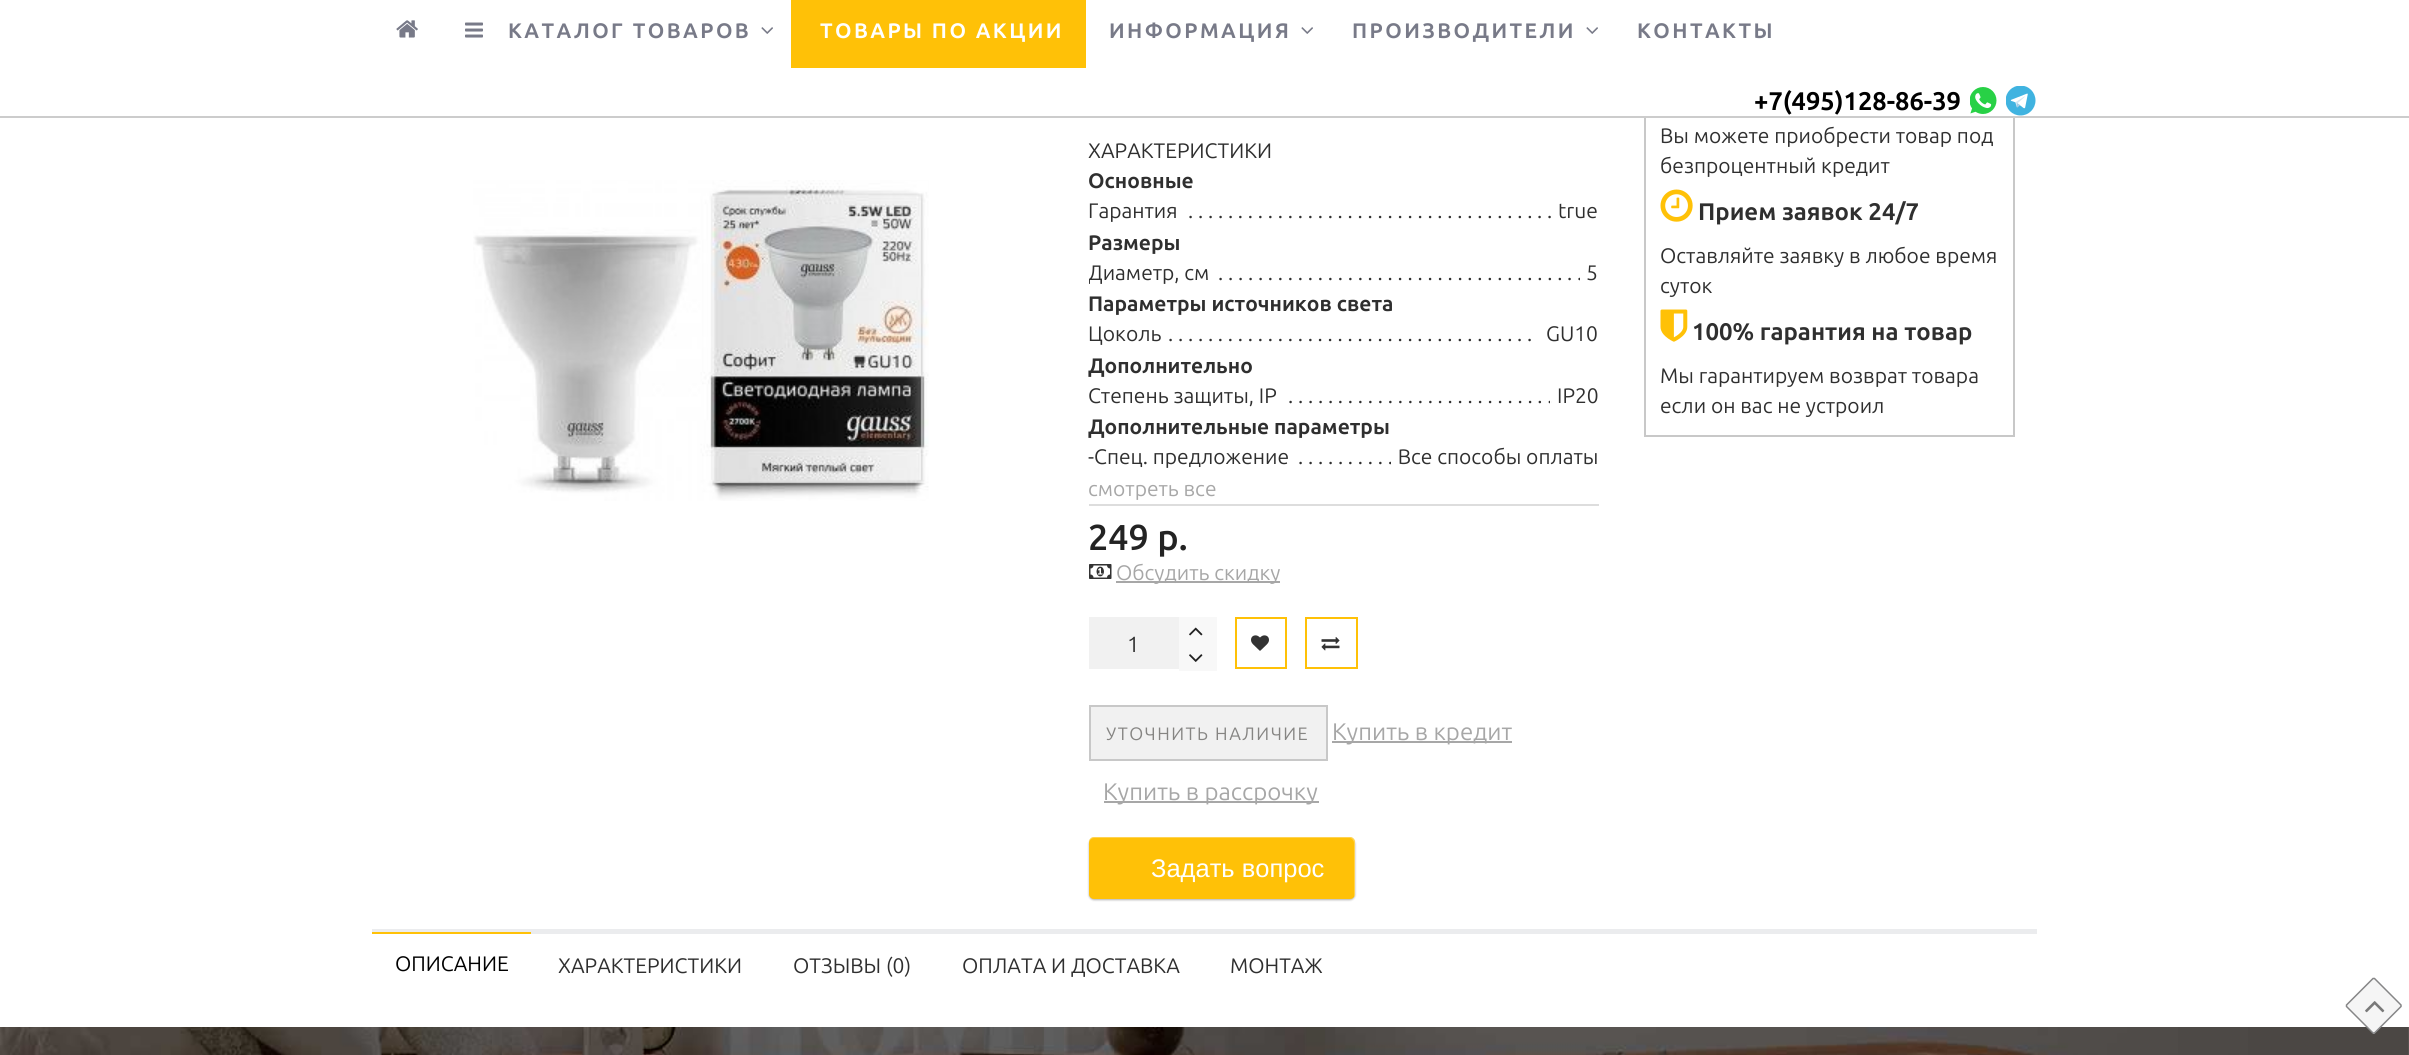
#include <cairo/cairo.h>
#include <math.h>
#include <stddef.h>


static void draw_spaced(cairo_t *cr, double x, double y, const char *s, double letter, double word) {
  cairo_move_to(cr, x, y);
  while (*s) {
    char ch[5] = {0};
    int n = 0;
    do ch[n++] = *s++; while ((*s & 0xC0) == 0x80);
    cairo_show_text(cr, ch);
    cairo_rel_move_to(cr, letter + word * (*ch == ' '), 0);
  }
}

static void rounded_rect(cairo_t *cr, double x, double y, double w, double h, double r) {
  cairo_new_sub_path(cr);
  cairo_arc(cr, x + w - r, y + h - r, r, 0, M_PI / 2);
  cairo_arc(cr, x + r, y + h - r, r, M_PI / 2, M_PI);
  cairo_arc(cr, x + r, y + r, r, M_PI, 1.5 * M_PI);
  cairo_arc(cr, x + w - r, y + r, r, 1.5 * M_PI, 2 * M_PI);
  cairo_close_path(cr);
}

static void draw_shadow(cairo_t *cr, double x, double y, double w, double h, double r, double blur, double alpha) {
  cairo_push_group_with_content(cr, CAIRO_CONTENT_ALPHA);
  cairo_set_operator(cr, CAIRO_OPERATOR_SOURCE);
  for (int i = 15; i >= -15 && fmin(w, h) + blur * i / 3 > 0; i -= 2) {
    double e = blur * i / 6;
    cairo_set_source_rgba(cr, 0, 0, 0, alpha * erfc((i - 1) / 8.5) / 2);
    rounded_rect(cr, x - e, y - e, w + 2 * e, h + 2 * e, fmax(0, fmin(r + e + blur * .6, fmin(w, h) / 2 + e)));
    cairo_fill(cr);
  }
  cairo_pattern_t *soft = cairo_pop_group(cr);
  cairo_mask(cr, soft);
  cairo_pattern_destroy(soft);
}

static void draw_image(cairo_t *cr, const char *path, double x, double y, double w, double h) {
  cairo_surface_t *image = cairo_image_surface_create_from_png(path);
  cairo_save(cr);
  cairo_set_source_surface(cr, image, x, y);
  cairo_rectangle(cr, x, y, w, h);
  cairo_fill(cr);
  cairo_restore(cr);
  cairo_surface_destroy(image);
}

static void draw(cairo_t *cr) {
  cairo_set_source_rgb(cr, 1, 1, 1);
  cairo_paint(cr);
  cairo_rectangle(cr, 1645, -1, 369, 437);
  cairo_set_source_rgb(cr, 200 / 255.0, 200 / 255.0, 200 / 255.0);
  cairo_stroke(cr);
  cairo_set_source_rgb(cr, 1, 1, 1);
  cairo_rectangle(cr, 1644, 0, 371, 116);
  cairo_fill(cr);
  cairo_set_source_rgb(cr, 204 / 255.0, 204 / 255.0, 204 / 255.0);
  cairo_rectangle(cr, 0, 116, 2409, 2);
  cairo_fill(cr);
  draw_image(cr, "images/1.png", 396, 20, 22, 18);
  draw_image(cr, "images/2.png", 465, 22, 18, 16);
  draw_image(cr, "images/3.png", 761, 27, 12, 7);
  cairo_set_source_rgb(cr, 1, 193 / 255.0, 7 / 255.0);
  cairo_rectangle(cr, 791, 0, 295, 68);
  cairo_fill(cr);
  draw_image(cr, "images/3.png", 1301, 27, 12, 7);
  draw_image(cr, "images/3.png", 1586, 27, 12, 7);
  draw_image(cr, "images/4.png", 1970, 87, 27, 27);
  draw_image(cr, "images/5.png", 2006, 86, 30, 30);
  draw_image(cr, "images/6.png", 473, 180, 456, 321);
  cairo_set_source_rgb(cr, 221 / 255.0, 221 / 255.0, 221 / 255.0);
  cairo_rectangle(cr, 1089, 504, 510, 2);
  cairo_fill(cr);
  draw_image(cr, "images/7.png", 1089, 564, 23, 15);
  cairo_set_source_rgb(cr, 167 / 255.0, 167 / 255.0, 167 / 255.0);
  cairo_rectangle(cr, 1116, 581, 164, 2);
  cairo_fill(cr);
  cairo_set_source_rgb(cr, 241 / 255.0, 241 / 255.0, 241 / 255.0);
  cairo_rectangle(cr, 1089, 617, 90, 52);
  cairo_fill(cr);
  cairo_set_source_rgb(cr, 248 / 255.0, 248 / 255.0, 248 / 255.0);
  cairo_rectangle(cr, 1179, 617, 38, 54);
  cairo_fill(cr);
  draw_image(cr, "images/8.png", 1189, 627, 14, 9);
  draw_image(cr, "images/9.png", 1189, 654, 14, 8);
  cairo_rectangle(cr, 1236, 618, 50, 50);
  cairo_set_source_rgb(cr, 1, 193 / 255.0, 7 / 255.0);
  cairo_stroke(cr);
  draw_image(cr, "images/10.png", 1251, 635, 18, 16);
  cairo_rectangle(cr, 1306, 618, 51, 50);
  cairo_stroke(cr);
  draw_image(cr, "images/11.png", 1321, 637, 19, 14);
  cairo_set_source_rgb(cr, 241 / 255.0, 241 / 255.0, 241 / 255.0);
  cairo_rectangle(cr, 1090, 706, 237, 54);
  cairo_fill_preserve(cr);
  cairo_set_source_rgb(cr, 200 / 255.0, 200 / 255.0, 200 / 255.0);
  cairo_stroke(cr);
  cairo_set_source_rgb(cr, 167 / 255.0, 167 / 255.0, 167 / 255.0);
  cairo_rectangle(cr, 1332, 741, 180, 2);
  cairo_fill(cr);
  cairo_rectangle(cr, 1104, 801, 215, 2);
  cairo_fill(cr);
  cairo_set_source_rgb(cr, 0, 0, 0);
  draw_shadow(cr, 1089, 839, 266, 61, 5, 1, 0.3);
  cairo_set_source_rgb(cr, 1, 193 / 255.0, 7 / 255.0);
  rounded_rect(cr, 1089, 837, 266, 62, 5);
  cairo_fill(cr);
  cairo_set_source_rgba(cr, 1, 1, 1, 0.3);
  cairo_new_path(cr);
  cairo_move_to(cr, 1094, 838);
  cairo_line_to(cr, 1350, 838);
  cairo_curve_to(cr, 1352, 838, 1354, 841, 1354, 843);
  cairo_line_to(cr, 1354, 897);
  cairo_curve_to(cr, 1355, 896, 1355, 895, 1355, 894);
  cairo_line_to(cr, 1355, 842);
  cairo_curve_to(cr, 1355, 839, 1353, 837, 1350, 837);
  cairo_line_to(cr, 1094, 837);
  cairo_curve_to(cr, 1091, 837, 1089, 839, 1089, 842);
  cairo_line_to(cr, 1089, 843);
  cairo_curve_to(cr, 1089, 841, 1091, 838, 1094, 838);
  cairo_close_path(cr);
  cairo_fill(cr);
  draw_image(cr, "images/12.png", 1660, 189, 33, 33);
  draw_image(cr, "images/13.png", 1660, 309, 28, 33);
  cairo_set_source_rgb(cr, 235 / 255.0, 236 / 255.0, 238 / 255.0);
  cairo_rectangle(cr, 372, 929, 1665, 5);
  cairo_fill(cr);
  cairo_set_source_rgb(cr, 1, 193 / 255.0, 7 / 255.0);
  cairo_rectangle(cr, 372, 932, 159, 2);
  cairo_fill(cr);
  draw_image(cr, "images/15.png", 0, 1027, 2409, 28);
  cairo_set_source_rgb(cr, 245 / 255.0, 245 / 255.0, 245 / 255.0);
  cairo_new_path(cr);
  cairo_move_to(cr, 2375, 978);
  cairo_line_to(cr, 2401, 1005);
  cairo_curve_to(cr, 2402, 1005, 2402, 1006, 2401, 1007);
  cairo_line_to(cr, 2375, 1033);
  cairo_curve_to(cr, 2374, 1034, 2373, 1034, 2373, 1033);
  cairo_line_to(cr, 2346, 1007);
  cairo_curve_to(cr, 2346, 1006, 2346, 1005, 2346, 1005);
  cairo_line_to(cr, 2373, 978);
  cairo_curve_to(cr, 2373, 978, 2374, 978, 2375, 978);
  cairo_close_path(cr);
  cairo_fill(cr);
  cairo_new_path(cr);
  cairo_move_to(cr, 2374.5, 978.5);
  cairo_line_to(cr, 2401, 1005);
  cairo_line_to(cr, 2401, 1006.5);
  cairo_line_to(cr, 2374.5, 1033);
  cairo_line_to(cr, 2373, 1033);
  cairo_line_to(cr, 2346.5, 1006.5);
  cairo_line_to(cr, 2346.5, 1005);
  cairo_line_to(cr, 2373, 978.5);
  cairo_close_path(cr);
  cairo_set_source_rgb(cr, 134 / 255.0, 134 / 255.0, 135 / 255.0);
  cairo_set_line_width(cr, 1.5);
  cairo_stroke(cr);
  draw_image(cr, "images/14.png", 2365, 1001, 20, 12);
  cairo_select_font_face(cr, "Ubuntu", CAIRO_FONT_SLANT_NORMAL, CAIRO_FONT_WEIGHT_BOLD);
  cairo_set_font_size(cr, 21);
  cairo_set_source_rgb(cr, 120 / 255.0, 122 / 255.0, 136 / 255.0);
  draw_spaced(cr, 508, 38, "КАТАЛОГ ТОВАРОВ", 2.4, 0);
  cairo_set_source_rgb(cr, 1, 1, 1);
  draw_spaced(cr, 820, 38, "ТОВАРЫ ПО АКЦИИ", 2.4, 0);
  cairo_set_source_rgb(cr, 120 / 255.0, 122 / 255.0, 136 / 255.0);
  draw_spaced(cr, 1109, 38, "ИНФОРМАЦИЯ", 2.4, 0);
  draw_spaced(cr, 1352, 38, "ПРОИЗВОДИТЕЛИ", 2.4, 0);
  draw_spaced(cr, 1637, 38, "КОНТАКТЫ", 2.4, 0);
  cairo_set_font_size(cr, 25.5);
  cairo_set_source_rgb(cr, 0, 0, 0);
  cairo_move_to(cr, 1754, 110);
  cairo_show_text(cr, "+7(495)128-86-39");
  cairo_select_font_face(cr, "Ubuntu", CAIRO_FONT_SLANT_NORMAL, CAIRO_FONT_WEIGHT_NORMAL);
  cairo_set_font_size(cr, 21);
  cairo_set_source_rgb(cr, 47 / 255.0, 47 / 255.0, 47 / 255.0);
  cairo_move_to(cr, 1088, 158);
  cairo_show_text(cr, "ХАРАКТЕРИСТИКИ");
  cairo_select_font_face(cr, "Ubuntu", CAIRO_FONT_SLANT_NORMAL, CAIRO_FONT_WEIGHT_BOLD);
  cairo_move_to(cr, 1088, 188);
  cairo_show_text(cr, "Основные");
  cairo_select_font_face(cr, "Ubuntu", CAIRO_FONT_SLANT_NORMAL, CAIRO_FONT_WEIGHT_NORMAL);
  cairo_move_to(cr, 1088, 218);
  cairo_show_text(cr, "Гарантия");
  cairo_move_to(cr, 1188, 218);
  cairo_show_text(cr, ". . . . . . . . . . . . . . . . . . . . . . . . . . . . . . . . . . . . .");
  cairo_move_to(cr, 1558, 218);
  cairo_show_text(cr, "true");
  cairo_select_font_face(cr, "Ubuntu", CAIRO_FONT_SLANT_NORMAL, CAIRO_FONT_WEIGHT_BOLD);
  cairo_move_to(cr, 1088, 250);
  cairo_show_text(cr, "Размеры");
  cairo_save(cr);
  cairo_rectangle(cr, 1089, 257, 510, 30);
  cairo_clip(cr);
  cairo_select_font_face(cr, "Ubuntu", CAIRO_FONT_SLANT_NORMAL, CAIRO_FONT_WEIGHT_NORMAL);
  cairo_move_to(cr, 1088, 280);
  cairo_show_text(cr, "Диаметр, см");
  cairo_restore(cr);
  cairo_select_font_face(cr, "Ubuntu", CAIRO_FONT_SLANT_NORMAL, CAIRO_FONT_WEIGHT_NORMAL);
  cairo_move_to(cr, 1218, 280);
  cairo_show_text(cr, ". . . . . . . . . . . . . . . . . . . . . . . . . . . . . . . . . . . . .");
  cairo_set_source_rgb(cr, 1, 1, 1);
  cairo_rectangle(cr, 1580, 277, 1, 4);
  cairo_fill(cr);
  cairo_set_source_rgb(cr, 47 / 255.0, 47 / 255.0, 47 / 255.0);
  cairo_move_to(cr, 1586, 280);
  cairo_show_text(cr, "5");
  cairo_select_font_face(cr, "Ubuntu", CAIRO_FONT_SLANT_NORMAL, CAIRO_FONT_WEIGHT_BOLD);
  cairo_move_to(cr, 1088, 311);
  cairo_show_text(cr, "Параметры источников света");
  cairo_select_font_face(cr, "Ubuntu", CAIRO_FONT_SLANT_NORMAL, CAIRO_FONT_WEIGHT_NORMAL);
  cairo_move_to(cr, 1088, 341);
  cairo_show_text(cr, "Цоколь");
  cairo_move_to(cr, 1168, 341);
  cairo_show_text(cr, ". . . . . . . . . . . . . . . . . . . . . . . . . . . . . . . . . . . . .");
  cairo_move_to(cr, 1546, 341);
  cairo_show_text(cr, "GU10");
  cairo_select_font_face(cr, "Ubuntu", CAIRO_FONT_SLANT_NORMAL, CAIRO_FONT_WEIGHT_BOLD);
  cairo_move_to(cr, 1088, 373);
  cairo_show_text(cr, "Дополнительно");
  cairo_select_font_face(cr, "Ubuntu", CAIRO_FONT_SLANT_NORMAL, CAIRO_FONT_WEIGHT_NORMAL);
  cairo_move_to(cr, 1088, 403);
  cairo_show_text(cr, "Степень защиты, IP");
  cairo_move_to(cr, 1288, 403);
  cairo_show_text(cr, ". . . . . . . . . . . . . . . . . . . . . . . . . . .");
  cairo_set_source_rgb(cr, 1, 1, 1);
  cairo_rectangle(cr, 1550, 400, 1, 4);
  cairo_fill(cr);
  cairo_set_source_rgb(cr, 47 / 255.0, 47 / 255.0, 47 / 255.0);
  cairo_move_to(cr, 1557, 403);
  cairo_show_text(cr, "IP20");
  cairo_select_font_face(cr, "Ubuntu", CAIRO_FONT_SLANT_NORMAL, CAIRO_FONT_WEIGHT_BOLD);
  cairo_move_to(cr, 1088, 434);
  cairo_show_text(cr, "Дополнительные параметры");
  cairo_select_font_face(cr, "Ubuntu", CAIRO_FONT_SLANT_NORMAL, CAIRO_FONT_WEIGHT_NORMAL);
  cairo_move_to(cr, 1088, 464);
  cairo_show_text(cr, "-Спец. предложение");
  cairo_move_to(cr, 1298, 464);
  cairo_show_text(cr, ". . . . . . . . . . Все способы оплаты");
  cairo_set_source_rgb(cr, 1, 1, 1);
  cairo_rectangle(cr, 1391, 462, 1, 2);
  cairo_fill(cr);
  cairo_set_source_rgb(cr, 167 / 255.0, 167 / 255.0, 167 / 255.0);
  cairo_move_to(cr, 1088, 496);
  cairo_show_text(cr, "смотреть все");
  cairo_select_font_face(cr, "Ubuntu SemiBold", CAIRO_FONT_SLANT_NORMAL, CAIRO_FONT_WEIGHT_NORMAL);
  cairo_set_font_size(cr, 36);
  cairo_set_source_rgb(cr, 35 / 255.0, 35 / 255.0, 35 / 255.0);
  cairo_move_to(cr, 1088, 550);
  cairo_show_text(cr, "249 р.");
  cairo_select_font_face(cr, "Ubuntu", CAIRO_FONT_SLANT_NORMAL, CAIRO_FONT_WEIGHT_NORMAL);
  cairo_set_font_size(cr, 21);
  cairo_set_source_rgb(cr, 167 / 255.0, 167 / 255.0, 167 / 255.0);
  cairo_move_to(cr, 1116, 580);
  cairo_show_text(cr, "Обсудить скидку");
  cairo_set_font_size(cr, 22);
  cairo_set_source_rgb(cr, 47 / 255.0, 47 / 255.0, 47 / 255.0);
  cairo_move_to(cr, 1127, 652);
  cairo_show_text(cr, "1");
  cairo_set_font_size(cr, 18);
  cairo_set_source_rgb(cr, 134 / 255.0, 133 / 255.0, 131 / 255.0);
  draw_spaced(cr, 1106, 740, "УТОЧНИТЬ НАЛИЧИЕ", 1.5, 0);
  cairo_set_font_size(cr, 24);
  cairo_set_source_rgb(cr, 167 / 255.0, 167 / 255.0, 167 / 255.0);
  cairo_move_to(cr, 1332, 740);
  cairo_show_text(cr, "Купить в кредит");
  cairo_move_to(cr, 1103, 800);
  cairo_show_text(cr, "Купить в рассрочку");
  cairo_select_font_face(cr, "Liberation Sans", CAIRO_FONT_SLANT_NORMAL, CAIRO_FONT_WEIGHT_NORMAL);
  cairo_set_font_size(cr, 25.5);
  cairo_set_source_rgb(cr, 1, 1, 1);
  cairo_move_to(cr, 1151, 877);
  cairo_show_text(cr, "Задать вопрос");
  cairo_select_font_face(cr, "Ubuntu", CAIRO_FONT_SLANT_NORMAL, CAIRO_FONT_WEIGHT_NORMAL);
  cairo_set_font_size(cr, 21);
  cairo_set_source_rgb(cr, 47 / 255.0, 47 / 255.0, 47 / 255.0);
  cairo_move_to(cr, 1660, 143);
  cairo_show_text(cr, "Вы можете приобрести товар под");
  cairo_move_to(cr, 1660, 173);
  cairo_show_text(cr, "безпроцентный кредит");
  cairo_select_font_face(cr, "Ubuntu", CAIRO_FONT_SLANT_NORMAL, CAIRO_FONT_WEIGHT_BOLD);
  cairo_set_font_size(cr, 24);
  cairo_move_to(cr, 1698, 220);
  cairo_show_text(cr, "Прием заявок 24/7");
  cairo_select_font_face(cr, "Ubuntu", CAIRO_FONT_SLANT_NORMAL, CAIRO_FONT_WEIGHT_NORMAL);
  cairo_set_font_size(cr, 21);
  cairo_move_to(cr, 1660, 263);
  cairo_show_text(cr, "Оставляйте заявку в любое время");
  cairo_move_to(cr, 1660, 293);
  cairo_show_text(cr, "суток");
  cairo_select_font_face(cr, "Ubuntu", CAIRO_FONT_SLANT_NORMAL, CAIRO_FONT_WEIGHT_BOLD);
  cairo_set_font_size(cr, 24);
  cairo_move_to(cr, 1692, 340);
  cairo_show_text(cr, "100% гарантия на товар");
  cairo_select_font_face(cr, "Ubuntu", CAIRO_FONT_SLANT_NORMAL, CAIRO_FONT_WEIGHT_NORMAL);
  cairo_set_font_size(cr, 21);
  cairo_move_to(cr, 1660, 383);
  cairo_show_text(cr, "Мы гарантируем возврат товара");
  cairo_move_to(cr, 1660, 413);
  cairo_show_text(cr, "если он вас не устроил");
  cairo_set_source_rgb(cr, 0, 0, 0);
  cairo_move_to(cr, 395, 971);
  cairo_show_text(cr, "ОПИСАНИЕ");
  cairo_set_source_rgb(cr, 47 / 255.0, 47 / 255.0, 47 / 255.0);
  cairo_move_to(cr, 558, 973);
  cairo_show_text(cr, "ХАРАКТЕРИСТИКИ");
  cairo_move_to(cr, 793, 973);
  cairo_show_text(cr, "ОТЗЫВЫ (0)");
  cairo_move_to(cr, 962, 973);
  cairo_show_text(cr, "ОПЛАТА И ДОСТАВКА");
  cairo_move_to(cr, 1230, 973);
  cairo_show_text(cr, "МОНТАЖ");
}

int main(void) {
  cairo_surface_t *surface = cairo_image_surface_create(CAIRO_FORMAT_RGB24, 2409, 1055);
  cairo_t *cr = cairo_create(surface);
  cairo_font_options_t *options = cairo_font_options_create();
  cairo_font_options_set_hint_metrics(options, CAIRO_HINT_METRICS_OFF);
  cairo_font_options_set_hint_style(options, CAIRO_HINT_STYLE_NONE);
  cairo_set_font_options(cr, options);
  cairo_set_miter_limit(cr, 4);
  draw(cr);
  cairo_surface_write_to_png(surface, "out.png");
  cairo_font_options_destroy(options);
  cairo_destroy(cr);
  cairo_surface_destroy(surface);
  return 0;
}
